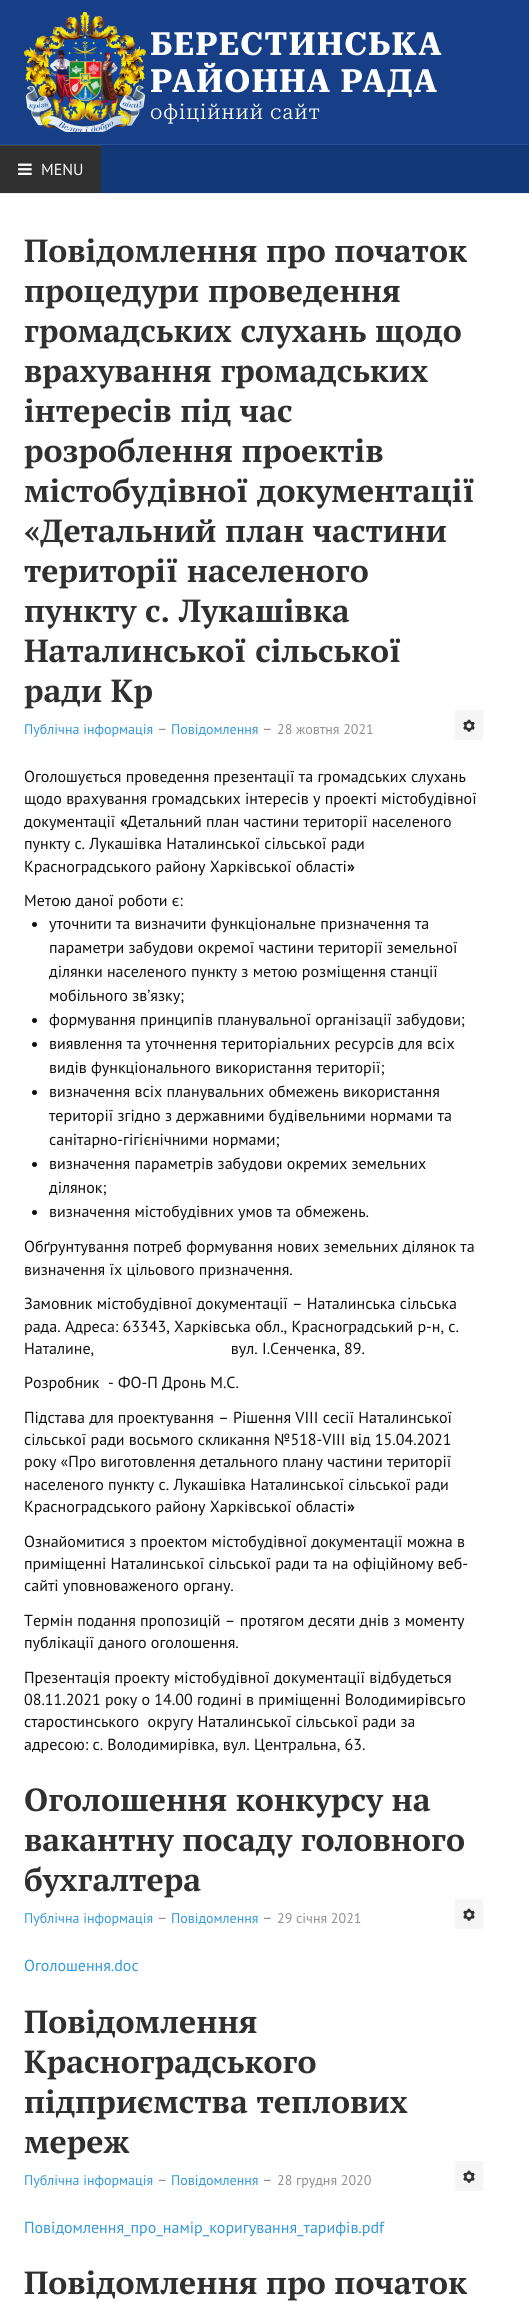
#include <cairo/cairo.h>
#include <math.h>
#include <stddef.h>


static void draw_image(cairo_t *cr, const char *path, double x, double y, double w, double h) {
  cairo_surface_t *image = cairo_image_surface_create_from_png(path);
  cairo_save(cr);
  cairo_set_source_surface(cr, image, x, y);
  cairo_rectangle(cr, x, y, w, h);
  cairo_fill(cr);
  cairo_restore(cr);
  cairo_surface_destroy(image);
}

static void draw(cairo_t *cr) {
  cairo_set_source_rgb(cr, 1, 1, 1);
  cairo_paint(cr);
  cairo_set_source_rgb(cr, 22 / 255.0, 63 / 255.0, 135 / 255.0);
  cairo_rectangle(cr, 0, 0, 529, 144);
  cairo_fill(cr);
  cairo_set_source_rgb(cr, 39 / 255.0, 79 / 255.0, 149 / 255.0);
  cairo_rectangle(cr, 0, 144, 529, 1);
  cairo_fill(cr);
  draw_image(cr, "images/1.png", 24, 12, 418, 120);
  cairo_set_source_rgb(cr, 19 / 255.0, 56 / 255.0, 119 / 255.0);
  cairo_rectangle(cr, 101, 145, 428, 48);
  cairo_fill(cr);
  cairo_set_source_rgb(cr, 238 / 255.0, 238 / 255.0, 238 / 255.0);
  cairo_rectangle(cr, 0, 193, 529, 1);
  cairo_fill(cr);
  cairo_set_source_rgb(cr, 48 / 255.0, 48 / 255.0, 48 / 255.0);
  cairo_rectangle(cr, 0, 146, 101, 47);
  cairo_fill(cr);
  cairo_set_source_rgb(cr, 69 / 255.0, 69 / 255.0, 69 / 255.0);
  cairo_rectangle(cr, 0, 145, 101, 1);
  cairo_fill(cr);
  draw_image(cr, "images/2.png", 18, 163, 14, 12);
  cairo_set_source_rgb(cr, 245 / 255.0, 245 / 255.0, 245 / 255.0);
  cairo_rectangle(cr, 455, 710, 28, 30);
  cairo_fill(cr);
  draw_image(cr, "images/3.png", 463, 719, 12, 13);
  cairo_set_source_rgb(cr, 16 / 255.0, 16 / 255.0, 16 / 255.0);
  cairo_arc(cr, 34.5, 924.5, 2.5, 0, 2 * M_PI);
  cairo_fill(cr);
  cairo_arc(cr, 34.5, 1020.5, 2.5, 0, 2 * M_PI);
  cairo_fill(cr);
  cairo_arc(cr, 34.5, 1044.5, 2.5, 0, 2 * M_PI);
  cairo_fill(cr);
  cairo_arc(cr, 34.5, 1092.5, 2.5, 0, 2 * M_PI);
  cairo_fill(cr);
  cairo_arc(cr, 34.5, 1164.5, 2.5, 0, 2 * M_PI);
  cairo_fill(cr);
  cairo_arc(cr, 34.5, 1212.5, 2.5, 0, 2 * M_PI);
  cairo_fill(cr);
  cairo_set_source_rgb(cr, 245 / 255.0, 245 / 255.0, 245 / 255.0);
  cairo_rectangle(cr, 455, 1899, 28, 30);
  cairo_fill(cr);
  draw_image(cr, "images/3.png", 463, 1908, 12, 13);
  cairo_rectangle(cr, 455, 2161, 28, 30);
  cairo_fill(cr);
  draw_image(cr, "images/3.png", 463, 2170, 12, 13);
  cairo_select_font_face(cr, "PT Sans", CAIRO_FONT_SLANT_NORMAL, CAIRO_FONT_WEIGHT_NORMAL);
  cairo_set_font_size(cr, 16);
  cairo_set_source_rgb(cr, 1, 1, 1);
  cairo_move_to(cr, 41, 175);
  cairo_show_text(cr, "MENU");
  cairo_select_font_face(cr, "PT Serif", CAIRO_FONT_SLANT_NORMAL, CAIRO_FONT_WEIGHT_BOLD);
  cairo_set_font_size(cr, 32);
  cairo_set_source_rgb(cr, 48 / 255.0, 48 / 255.0, 48 / 255.0);
  cairo_move_to(cr, 24, 262);
  cairo_show_text(cr, "Повідомлення про початок");
  cairo_move_to(cr, 24, 302);
  cairo_show_text(cr, "процедури проведення");
  cairo_move_to(cr, 24, 342);
  cairo_show_text(cr, "громадських слухань щодо");
  cairo_move_to(cr, 24, 382);
  cairo_show_text(cr, "врахування громадських");
  cairo_move_to(cr, 24, 422);
  cairo_show_text(cr, "інтересів під час");
  cairo_move_to(cr, 24, 462);
  cairo_show_text(cr, "розроблення проектів");
  cairo_move_to(cr, 24, 502);
  cairo_show_text(cr, "містобудівної документації");
  cairo_move_to(cr, 24, 542);
  cairo_show_text(cr, "«Детальний план частини");
  cairo_move_to(cr, 24, 582);
  cairo_show_text(cr, "території населеного");
  cairo_move_to(cr, 24, 622);
  cairo_show_text(cr, "пункту с. Лукашівка");
  cairo_move_to(cr, 24, 662);
  cairo_show_text(cr, "Наталинської сільської");
  cairo_move_to(cr, 24, 702);
  cairo_show_text(cr, "ради Кр");
  cairo_select_font_face(cr, "PT Sans", CAIRO_FONT_SLANT_NORMAL, CAIRO_FONT_WEIGHT_NORMAL);
  cairo_set_font_size(cr, 14);
  cairo_set_source_rgb(cr, 52 / 255.0, 152 / 255.0, 219 / 255.0);
  cairo_move_to(cr, 24, 734);
  cairo_show_text(cr, "Публічна інформація");
  cairo_set_font_size(cr, 16);
  cairo_set_source_rgb(cr, 144 / 255.0, 144 / 255.0, 144 / 255.0);
  cairo_move_to(cr, 157, 734);
  cairo_show_text(cr, "–");
  cairo_set_font_size(cr, 14);
  cairo_set_source_rgb(cr, 52 / 255.0, 152 / 255.0, 219 / 255.0);
  cairo_move_to(cr, 171, 734);
  cairo_show_text(cr, "Повідомлення");
  cairo_set_font_size(cr, 16);
  cairo_set_source_rgb(cr, 144 / 255.0, 144 / 255.0, 144 / 255.0);
  cairo_move_to(cr, 262, 734);
  cairo_show_text(cr, "–");
  cairo_set_font_size(cr, 14);
  cairo_move_to(cr, 277, 734);
  cairo_show_text(cr, "28 жовтня 2021");
  cairo_set_font_size(cr, 16);
  cairo_set_source_rgb(cr, 16 / 255.0, 16 / 255.0, 16 / 255.0);
  cairo_move_to(cr, 24, 782);
  cairo_show_text(cr, "Оголошується проведення презентації та громадських слухань");
  cairo_move_to(cr, 24, 804);
  cairo_show_text(cr, "щодо врахування громадських інтересів у проекті містобудівної");
  cairo_move_to(cr, 24, 827);
  cairo_show_text(cr, "документації");
  cairo_select_font_face(cr, "PT Sans", CAIRO_FONT_SLANT_NORMAL, CAIRO_FONT_WEIGHT_BOLD);
  cairo_move_to(cr, 120, 827);
  cairo_show_text(cr, "«");
  cairo_select_font_face(cr, "PT Sans", CAIRO_FONT_SLANT_NORMAL, CAIRO_FONT_WEIGHT_NORMAL);
  cairo_move_to(cr, 127, 827);
  cairo_show_text(cr, "Детальний план частини території населеного");
  cairo_move_to(cr, 24, 849);
  cairo_show_text(cr, "пункту с. Лукашівка Наталинської сільської ради");
  cairo_move_to(cr, 24, 872);
  cairo_show_text(cr, "Красноградського району Харківської області");
  cairo_select_font_face(cr, "PT Sans", CAIRO_FONT_SLANT_NORMAL, CAIRO_FONT_WEIGHT_BOLD);
  cairo_move_to(cr, 347, 872);
  cairo_show_text(cr, "»");
  cairo_select_font_face(cr, "PT Sans", CAIRO_FONT_SLANT_NORMAL, CAIRO_FONT_WEIGHT_NORMAL);
  cairo_move_to(cr, 24, 906);
  cairo_show_text(cr, "Метою даної роботи є:");
  cairo_move_to(cr, 49, 929);
  cairo_show_text(cr, "уточнити та визначити функціональне призначення та");
  cairo_move_to(cr, 49, 953);
  cairo_show_text(cr, "параметри забудови окремої частини території земельної");
  cairo_move_to(cr, 49, 977);
  cairo_show_text(cr, "ділянки населеного пункту з метою розміщення станції");
  cairo_move_to(cr, 49, 1001);
  cairo_show_text(cr, "мобільного зв’язку;");
  cairo_move_to(cr, 49, 1025);
  cairo_show_text(cr, "формування принципів планувальної організації забудови;");
  cairo_move_to(cr, 49, 1049);
  cairo_show_text(cr, "виявлення та уточнення територіальних ресурсів для всіх");
  cairo_move_to(cr, 49, 1073);
  cairo_show_text(cr, "видів функціонального використання території;");
  cairo_move_to(cr, 49, 1097);
  cairo_show_text(cr, "визначення всіх планувальних обмежень використання");
  cairo_move_to(cr, 49, 1121);
  cairo_show_text(cr, "території згідно з державними будівельними нормами та");
  cairo_move_to(cr, 49, 1145);
  cairo_show_text(cr, "санітарно-гігієнічними нормами;");
  cairo_move_to(cr, 49, 1169);
  cairo_show_text(cr, "визначення параметрів забудови окремих земельних");
  cairo_move_to(cr, 49, 1193);
  cairo_show_text(cr, "ділянок;");
  cairo_move_to(cr, 49, 1217);
  cairo_show_text(cr, "визначення містобудівних умов та обмежень.");
  cairo_move_to(cr, 24, 1252);
  cairo_show_text(cr, "Обґрунтування потреб формування нових земельних ділянок та");
  cairo_move_to(cr, 24, 1275);
  cairo_show_text(cr, "визначення їх цільового призначення.");
  cairo_move_to(cr, 24, 1309);
  cairo_show_text(cr, "Замовник містобудівної документації – Наталинська сільська");
  cairo_move_to(cr, 24, 1332);
  cairo_show_text(cr, "рада. Адреса: 63343, Харківська обл., Красноградський р-н, с.");
  cairo_move_to(cr, 24, 1354);
  cairo_show_text(cr, "Наталине,                                вул. І.Сенченка, 89.");
  cairo_move_to(cr, 24, 1388);
  cairo_show_text(cr, "Розробник  - ФО-П Дронь М.С.");
  cairo_move_to(cr, 24, 1423);
  cairo_show_text(cr, "Підстава для проектування – Рішення VІІІ сесії Наталинської");
  cairo_move_to(cr, 24, 1445);
  cairo_show_text(cr, "сільської ради восьмого скликання №518-VІІІ від 15.04.2021");
  cairo_move_to(cr, 24, 1467);
  cairo_show_text(cr, "року «Про виготовлення детального плану частини території");
  cairo_move_to(cr, 24, 1490);
  cairo_show_text(cr, "населеного пункту с. Лукашівка Наталинської сільської ради");
  cairo_move_to(cr, 24, 1512);
  cairo_show_text(cr, "Красноградського району Харківської області");
  cairo_select_font_face(cr, "PT Sans", CAIRO_FONT_SLANT_NORMAL, CAIRO_FONT_WEIGHT_BOLD);
  cairo_move_to(cr, 347, 1512);
  cairo_show_text(cr, "»");
  cairo_select_font_face(cr, "PT Sans", CAIRO_FONT_SLANT_NORMAL, CAIRO_FONT_WEIGHT_NORMAL);
  cairo_move_to(cr, 24, 1547);
  cairo_show_text(cr, "Ознайомитися з проектом містобудівної документації можна в");
  cairo_move_to(cr, 24, 1569);
  cairo_show_text(cr, "приміщенні Наталинської сільської ради та на офіційному веб-");
  cairo_move_to(cr, 24, 1591);
  cairo_show_text(cr, "сайті уповноваженого органу.");
  cairo_move_to(cr, 24, 1626);
  cairo_show_text(cr, "Термін подання пропозицій – протягом десяти днів з моменту");
  cairo_move_to(cr, 24, 1648);
  cairo_show_text(cr, "публікації даного оголошення.");
  cairo_move_to(cr, 24, 1683);
  cairo_show_text(cr, "Презентація проекту містобудівної документації відбудеться");
  cairo_move_to(cr, 24, 1705);
  cairo_show_text(cr, "08.11.2021 року о 14.00 годині в приміщенні Володимирівсьго");
  cairo_move_to(cr, 24, 1727);
  cairo_show_text(cr, "старостинського  округу Наталинської сільської ради за");
  cairo_move_to(cr, 24, 1750);
  cairo_show_text(cr, "адресою: с. Володимирівка, вул. Центральна, 63.");
  cairo_select_font_face(cr, "PT Serif", CAIRO_FONT_SLANT_NORMAL, CAIRO_FONT_WEIGHT_BOLD);
  cairo_set_font_size(cr, 32);
  cairo_set_source_rgb(cr, 48 / 255.0, 48 / 255.0, 48 / 255.0);
  cairo_move_to(cr, 24, 1811);
  cairo_show_text(cr, "Оголошення конкурсу на");
  cairo_move_to(cr, 24, 1851);
  cairo_show_text(cr, "вакантну посаду головного");
  cairo_move_to(cr, 24, 1891);
  cairo_show_text(cr, "бухгалтера");
  cairo_select_font_face(cr, "PT Sans", CAIRO_FONT_SLANT_NORMAL, CAIRO_FONT_WEIGHT_NORMAL);
  cairo_set_font_size(cr, 14);
  cairo_set_source_rgb(cr, 52 / 255.0, 152 / 255.0, 219 / 255.0);
  cairo_move_to(cr, 24, 1923);
  cairo_show_text(cr, "Публічна інформація");
  cairo_set_font_size(cr, 16);
  cairo_set_source_rgb(cr, 144 / 255.0, 144 / 255.0, 144 / 255.0);
  cairo_move_to(cr, 157, 1923);
  cairo_show_text(cr, "–");
  cairo_set_font_size(cr, 14);
  cairo_set_source_rgb(cr, 52 / 255.0, 152 / 255.0, 219 / 255.0);
  cairo_move_to(cr, 171, 1923);
  cairo_show_text(cr, "Повідомлення");
  cairo_set_font_size(cr, 16);
  cairo_set_source_rgb(cr, 144 / 255.0, 144 / 255.0, 144 / 255.0);
  cairo_move_to(cr, 262, 1923);
  cairo_show_text(cr, "–");
  cairo_set_font_size(cr, 14);
  cairo_move_to(cr, 277, 1923);
  cairo_show_text(cr, "29 січня 2021");
  cairo_set_font_size(cr, 16);
  cairo_set_source_rgb(cr, 52 / 255.0, 152 / 255.0, 219 / 255.0);
  cairo_move_to(cr, 24, 1971);
  cairo_show_text(cr, "Оголошення.doc");
  cairo_select_font_face(cr, "PT Serif", CAIRO_FONT_SLANT_NORMAL, CAIRO_FONT_WEIGHT_BOLD);
  cairo_set_font_size(cr, 32);
  cairo_set_source_rgb(cr, 48 / 255.0, 48 / 255.0, 48 / 255.0);
  cairo_move_to(cr, 24, 2033);
  cairo_show_text(cr, "Повідомлення");
  cairo_move_to(cr, 24, 2073);
  cairo_show_text(cr, "Красноградського");
  cairo_move_to(cr, 24, 2113);
  cairo_show_text(cr, "підприємства теплових");
  cairo_move_to(cr, 24, 2153);
  cairo_show_text(cr, "мереж");
  cairo_select_font_face(cr, "PT Sans", CAIRO_FONT_SLANT_NORMAL, CAIRO_FONT_WEIGHT_NORMAL);
  cairo_set_font_size(cr, 14);
  cairo_set_source_rgb(cr, 52 / 255.0, 152 / 255.0, 219 / 255.0);
  cairo_move_to(cr, 24, 2185);
  cairo_show_text(cr, "Публічна інформація");
  cairo_set_font_size(cr, 16);
  cairo_set_source_rgb(cr, 144 / 255.0, 144 / 255.0, 144 / 255.0);
  cairo_move_to(cr, 157, 2185);
  cairo_show_text(cr, "–");
  cairo_set_font_size(cr, 14);
  cairo_set_source_rgb(cr, 52 / 255.0, 152 / 255.0, 219 / 255.0);
  cairo_move_to(cr, 171, 2185);
  cairo_show_text(cr, "Повідомлення");
  cairo_set_font_size(cr, 16);
  cairo_set_source_rgb(cr, 144 / 255.0, 144 / 255.0, 144 / 255.0);
  cairo_move_to(cr, 262, 2185);
  cairo_show_text(cr, "–");
  cairo_set_font_size(cr, 14);
  cairo_move_to(cr, 277, 2185);
  cairo_show_text(cr, "28 грудня 2020");
  cairo_set_font_size(cr, 16);
  cairo_set_source_rgb(cr, 52 / 255.0, 152 / 255.0, 219 / 255.0);
  cairo_move_to(cr, 24, 2233);
  cairo_show_text(cr, "Повідомлення_про_намір_коригування_тарифів.pdf");
  cairo_select_font_face(cr, "PT Serif", CAIRO_FONT_SLANT_NORMAL, CAIRO_FONT_WEIGHT_BOLD);
  cairo_set_font_size(cr, 32);
  cairo_set_source_rgb(cr, 48 / 255.0, 48 / 255.0, 48 / 255.0);
  cairo_move_to(cr, 24, 2294);
  cairo_show_text(cr, "Повідомлення про початок");
}

int main(void) {
  cairo_surface_t *surface = cairo_image_surface_create(CAIRO_FORMAT_RGB24, 529, 2302);
  cairo_t *cr = cairo_create(surface);
  cairo_font_options_t *options = cairo_font_options_create();
  cairo_font_options_set_hint_metrics(options, CAIRO_HINT_METRICS_OFF);
  cairo_font_options_set_hint_style(options, CAIRO_HINT_STYLE_NONE);
  cairo_set_font_options(cr, options);
  cairo_set_miter_limit(cr, 4);
  draw(cr);
  cairo_surface_write_to_png(surface, "out.png");
  cairo_font_options_destroy(options);
  cairo_destroy(cr);
  cairo_surface_destroy(surface);
  return 0;
}
